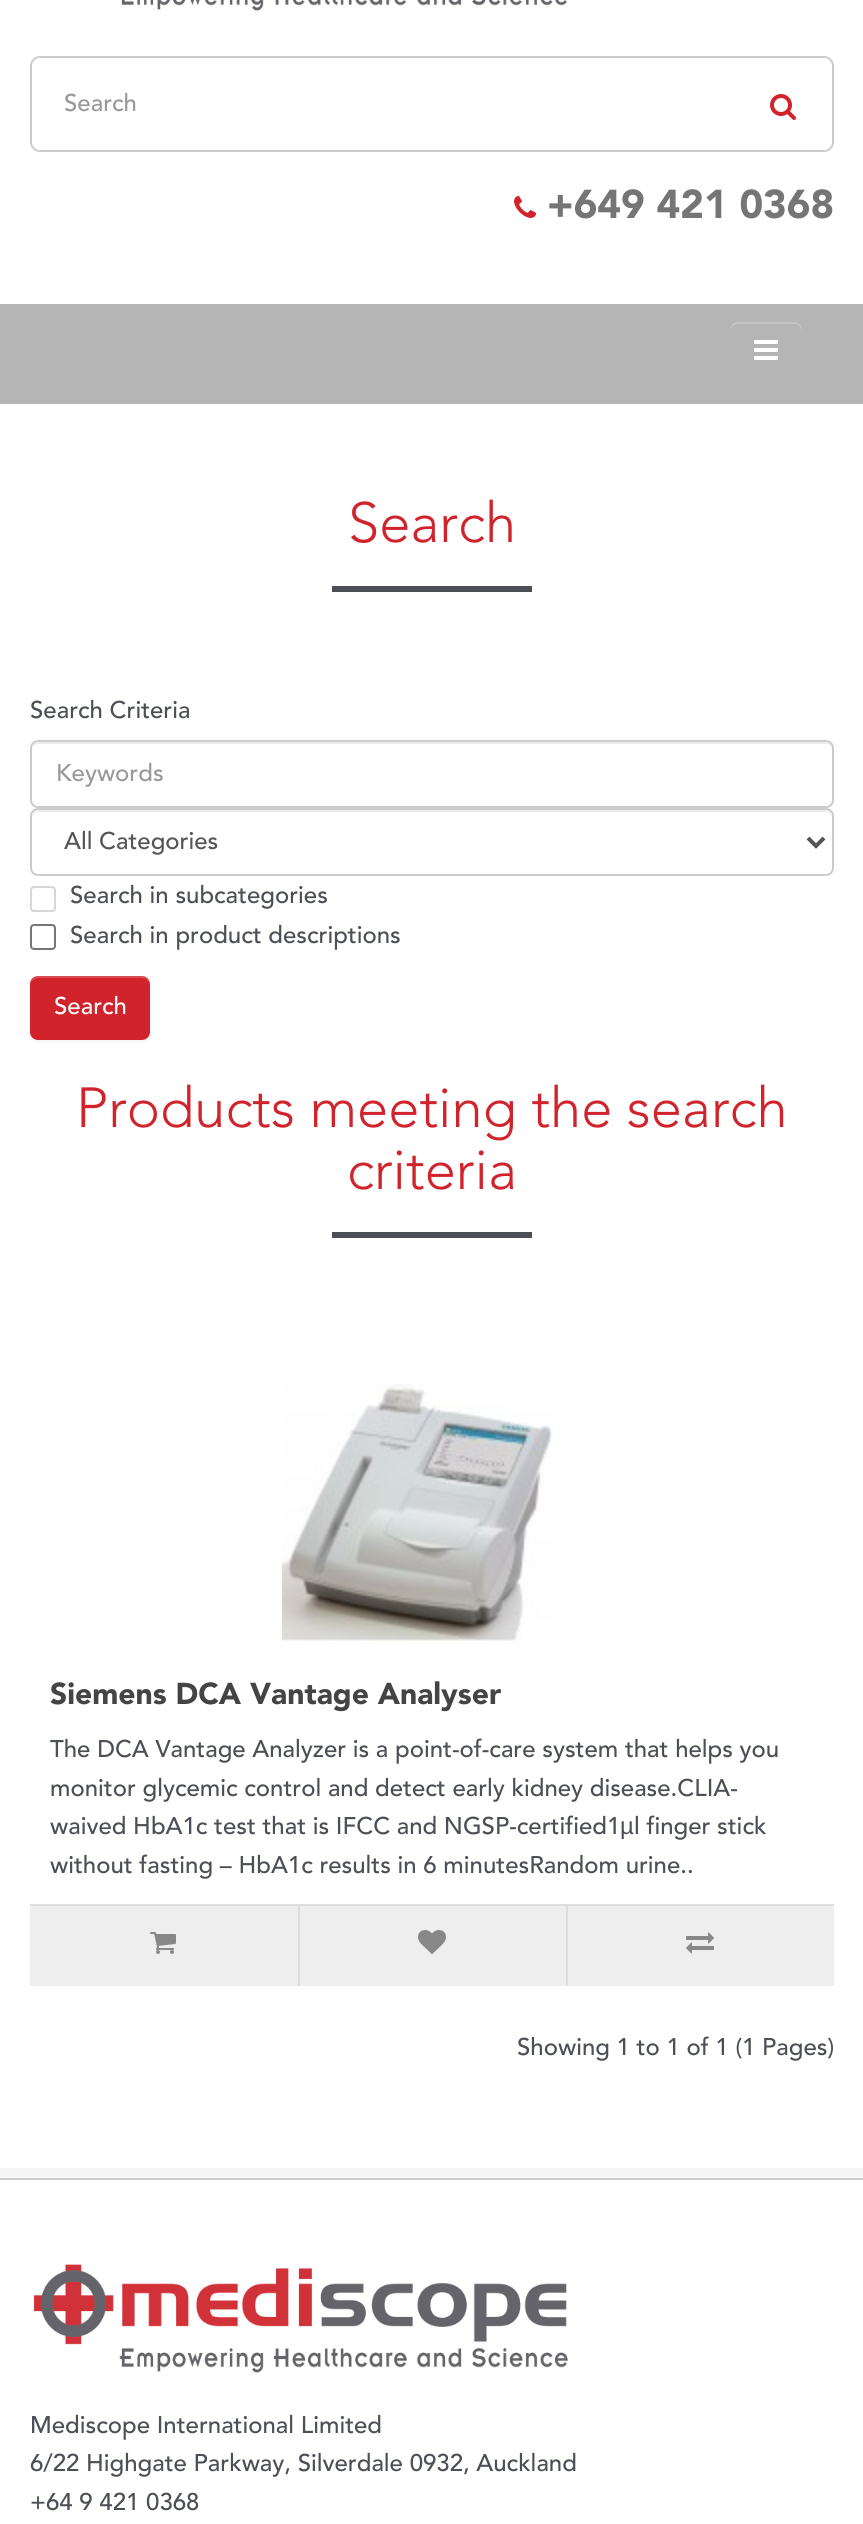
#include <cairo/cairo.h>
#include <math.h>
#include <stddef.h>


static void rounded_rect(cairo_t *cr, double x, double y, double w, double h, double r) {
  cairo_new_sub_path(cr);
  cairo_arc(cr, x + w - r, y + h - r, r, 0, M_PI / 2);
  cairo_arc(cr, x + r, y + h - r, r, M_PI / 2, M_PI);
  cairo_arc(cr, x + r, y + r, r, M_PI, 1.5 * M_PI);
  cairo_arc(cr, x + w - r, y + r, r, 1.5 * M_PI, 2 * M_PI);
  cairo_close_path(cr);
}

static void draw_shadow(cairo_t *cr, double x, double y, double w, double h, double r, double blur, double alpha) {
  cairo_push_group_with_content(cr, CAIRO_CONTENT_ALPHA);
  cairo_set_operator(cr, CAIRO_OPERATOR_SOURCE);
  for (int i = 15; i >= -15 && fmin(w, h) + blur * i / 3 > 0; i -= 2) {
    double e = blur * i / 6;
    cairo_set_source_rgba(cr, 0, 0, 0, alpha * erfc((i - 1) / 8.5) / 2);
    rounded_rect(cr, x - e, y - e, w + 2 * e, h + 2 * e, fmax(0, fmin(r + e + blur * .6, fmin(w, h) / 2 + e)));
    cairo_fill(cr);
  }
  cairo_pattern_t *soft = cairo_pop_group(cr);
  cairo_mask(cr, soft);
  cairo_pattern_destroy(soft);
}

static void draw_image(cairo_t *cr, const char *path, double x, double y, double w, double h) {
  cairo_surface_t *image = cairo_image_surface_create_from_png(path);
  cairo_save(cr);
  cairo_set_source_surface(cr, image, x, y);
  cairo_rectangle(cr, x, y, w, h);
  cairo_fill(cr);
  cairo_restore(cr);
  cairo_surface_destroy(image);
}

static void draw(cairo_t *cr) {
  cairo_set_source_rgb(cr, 1, 1, 1);
  cairo_paint(cr);
  draw_image(cr, "images/1.png", 121, 0, 446, 11);
  rounded_rect(cr, 31, 57, 802, 94, 9);
  cairo_set_source_rgb(cr, 204 / 255.0, 204 / 255.0, 204 / 255.0);
  cairo_stroke(cr);
  draw_image(cr, "images/2.png", 770, 94, 26, 26);
  draw_image(cr, "images/3.png", 514, 196, 22, 22);
  cairo_set_source_rgb(cr, 181 / 255.0, 181 / 255.0, 181 / 255.0);
  cairo_rectangle(cr, 0, 304, 863, 100);
  cairo_fill(cr);
  cairo_set_source_rgb(cr, 196 / 255.0, 196 / 255.0, 196 / 255.0);
  cairo_new_path(cr);
  cairo_move_to(cr, 738, 324);
  cairo_line_to(cr, 794, 324);
  cairo_curve_to(cr, 798, 324, 802, 328, 802, 332);
  cairo_curve_to(cr, 802, 320, 794, 322, 785, 322);
  cairo_line_to(cr, 747, 322);
  cairo_curve_to(cr, 738, 322, 730, 320, 730, 332);
  cairo_curve_to(cr, 730, 328, 734, 324, 738, 324);
  cairo_close_path(cr);
  cairo_fill(cr);
  draw_image(cr, "images/4.png", 754, 340, 24, 20);
  cairo_set_source_rgb(cr, 77 / 255.0, 79 / 255.0, 86 / 255.0);
  cairo_rectangle(cr, 332, 586, 200, 6);
  cairo_fill(cr);
  cairo_set_source_rgb(cr, 236 / 255.0, 236 / 255.0, 236 / 255.0);
  cairo_new_path(cr);
  cairo_move_to(cr, 38, 744);
  cairo_line_to(cr, 826, 744);
  cairo_curve_to(cr, 829, 744, 832, 747, 832, 750);
  cairo_line_to(cr, 832, 748);
  cairo_curve_to(cr, 832, 745, 829, 742, 826, 742);
  cairo_line_to(cr, 38, 742);
  cairo_curve_to(cr, 35, 742, 32, 745, 32, 748);
  cairo_line_to(cr, 32, 750);
  cairo_curve_to(cr, 32, 747, 35, 744, 38, 744);
  cairo_close_path(cr);
  cairo_fill(cr);
  rounded_rect(cr, 31, 741, 802, 66, 7);
  cairo_set_source_rgb(cr, 204 / 255.0, 204 / 255.0, 204 / 255.0);
  cairo_stroke(cr);
  cairo_set_source_rgb(cr, 236 / 255.0, 236 / 255.0, 236 / 255.0);
  cairo_new_path(cr);
  cairo_move_to(cr, 38, 812);
  cairo_line_to(cr, 826, 812);
  cairo_curve_to(cr, 829, 812, 832, 815, 832, 818);
  cairo_line_to(cr, 832, 816);
  cairo_curve_to(cr, 832, 813, 829, 810, 826, 810);
  cairo_line_to(cr, 38, 810);
  cairo_curve_to(cr, 35, 810, 32, 813, 32, 816);
  cairo_line_to(cr, 32, 818);
  cairo_curve_to(cr, 32, 815, 35, 812, 38, 812);
  cairo_close_path(cr);
  cairo_fill(cr);
  rounded_rect(cr, 31, 809, 802, 66, 7);
  cairo_set_source_rgb(cr, 204 / 255.0, 204 / 255.0, 204 / 255.0);
  cairo_stroke(cr);
  cairo_new_path(cr);
  cairo_move_to(cr, 808, 838);
  cairo_line_to(cr, 816, 846);
  cairo_line_to(cr, 824, 838);
  cairo_set_source_rgb(cr, 85 / 255.0, 85 / 255.0, 85 / 255.0);
  cairo_set_line_width(cr, 4);
  cairo_stroke(cr);
  rounded_rect(cr, 31, 887, 24, 24, 3);
  cairo_set_source_rgb(cr, 214 / 255.0, 214 / 255.0, 214 / 255.0);
  cairo_set_line_width(cr, 2);
  cairo_stroke(cr);
  rounded_rect(cr, 31, 925, 24, 24, 3);
  cairo_set_source_rgb(cr, 118 / 255.0, 118 / 255.0, 118 / 255.0);
  cairo_stroke(cr);
  cairo_set_source_rgb(cr, 0, 0, 0);
  draw_shadow(cr, 30, 978, 120, 64, 8, 2, 0.05);
  cairo_set_source_rgb(cr, 208 / 255.0, 35 / 255.0, 43 / 255.0);
  rounded_rect(cr, 30, 976, 120, 64, 8);
  cairo_fill(cr);
  cairo_set_source_rgba(cr, 1, 1, 1, 0.2);
  cairo_new_path(cr);
  cairo_move_to(cr, 38, 978);
  cairo_line_to(cr, 142, 978);
  cairo_curve_to(cr, 146, 978, 150, 982, 150, 986);
  cairo_curve_to(cr, 150, 972, 135, 976, 125, 976);
  cairo_line_to(cr, 55, 976);
  cairo_curve_to(cr, 45, 976, 30, 972, 30, 986);
  cairo_curve_to(cr, 30, 982, 34, 978, 38, 978);
  cairo_close_path(cr);
  cairo_fill(cr);
  cairo_set_source_rgb(cr, 77 / 255.0, 79 / 255.0, 86 / 255.0);
  cairo_rectangle(cr, 332, 1232, 200, 6);
  cairo_fill(cr);
  draw_image(cr, "images/5.png", 282, 1384, 271, 259);
  cairo_set_source_rgb(cr, 238 / 255.0, 238 / 255.0, 238 / 255.0);
  cairo_rectangle(cr, 30, 1906, 804, 80);
  cairo_fill(cr);
  cairo_set_source_rgb(cr, 221 / 255.0, 221 / 255.0, 221 / 255.0);
  cairo_rectangle(cr, 30, 1904, 804, 2);
  cairo_fill(cr);
  draw_image(cr, "images/6.png", 150, 1932, 26, 22);
  cairo_rectangle(cr, 298, 1906, 2, 80);
  cairo_fill(cr);
  draw_image(cr, "images/7.png", 418, 1930, 28, 24);
  cairo_rectangle(cr, 566, 1906, 2, 80);
  cairo_fill(cr);
  draw_image(cr, "images/8.png", 686, 1932, 28, 22);
  cairo_set_source_rgb(cr, 245 / 255.0, 245 / 255.0, 245 / 255.0);
  cairo_rectangle(cr, 0, 2168, 863, 10);
  cairo_fill(cr);
  cairo_set_source_rgb(cr, 204 / 255.0, 204 / 255.0, 204 / 255.0);
  cairo_rectangle(cr, 0, 2178, 863, 2);
  cairo_fill(cr);
  draw_image(cr, "images/9.png", 33, 2264, 535, 109);
  cairo_select_font_face(cr, "Avenir Medium", CAIRO_FONT_SLANT_NORMAL, CAIRO_FONT_WEIGHT_NORMAL);
  cairo_set_font_size(cr, 24);
  cairo_set_source_rgb(cr, 153 / 255.0, 153 / 255.0, 153 / 255.0);
  cairo_move_to(cr, 64, 111);
  cairo_show_text(cr, "Search");
  cairo_select_font_face(cr, "Avenir Black", CAIRO_FONT_SLANT_NORMAL, CAIRO_FONT_WEIGHT_NORMAL);
  cairo_set_font_size(cr, 40);
  cairo_set_source_rgb(cr, 118 / 255.0, 117 / 255.0, 117 / 255.0);
  cairo_move_to(cr, 547, 218);
  cairo_show_text(cr, "+649 421 0368");
  cairo_select_font_face(cr, "Avenir Light", CAIRO_FONT_SLANT_NORMAL, CAIRO_FONT_WEIGHT_NORMAL);
  cairo_set_font_size(cr, 56);
  cairo_set_source_rgb(cr, 208 / 255.0, 35 / 255.0, 43 / 255.0);
  cairo_move_to(cr, 348, 542);
  cairo_show_text(cr, "Search");
  cairo_select_font_face(cr, "Avenir Medium", CAIRO_FONT_SLANT_NORMAL, CAIRO_FONT_WEIGHT_NORMAL);
  cairo_set_font_size(cr, 24);
  cairo_set_source_rgb(cr, 77 / 255.0, 79 / 255.0, 86 / 255.0);
  cairo_move_to(cr, 30, 718);
  cairo_show_text(cr, "Search Criteria");
  cairo_set_source_rgb(cr, 153 / 255.0, 153 / 255.0, 153 / 255.0);
  cairo_move_to(cr, 56, 781);
  cairo_show_text(cr, "Keywords");
  cairo_set_source_rgb(cr, 85 / 255.0, 85 / 255.0, 85 / 255.0);
  cairo_move_to(cr, 64, 849);
  cairo_show_text(cr, "All Categories");
  cairo_set_source_rgb(cr, 77 / 255.0, 79 / 255.0, 86 / 255.0);
  cairo_move_to(cr, 70, 903);
  cairo_show_text(cr, "Search in subcategories");
  cairo_move_to(cr, 70, 943);
  cairo_show_text(cr, "Search in product descriptions");
  cairo_set_source_rgb(cr, 1, 1, 1);
  cairo_move_to(cr, 54, 1014);
  cairo_show_text(cr, "Search");
  cairo_select_font_face(cr, "Avenir Light", CAIRO_FONT_SLANT_NORMAL, CAIRO_FONT_WEIGHT_NORMAL);
  cairo_set_font_size(cr, 56);
  cairo_set_source_rgb(cr, 208 / 255.0, 35 / 255.0, 43 / 255.0);
  cairo_move_to(cr, 76, 1127);
  cairo_show_text(cr, "Products meeting the search");
  cairo_move_to(cr, 347, 1189);
  cairo_show_text(cr, "criteria");
  cairo_select_font_face(cr, "Avenir Black", CAIRO_FONT_SLANT_NORMAL, CAIRO_FONT_WEIGHT_NORMAL);
  cairo_set_font_size(cr, 30);
  cairo_set_source_rgb(cr, 68 / 255.0, 68 / 255.0, 68 / 255.0);
  cairo_move_to(cr, 50, 1704);
  cairo_show_text(cr, "Siemens DCA Vantage Analyser");
  cairo_select_font_face(cr, "Avenir Medium", CAIRO_FONT_SLANT_NORMAL, CAIRO_FONT_WEIGHT_NORMAL);
  cairo_set_font_size(cr, 24);
  cairo_set_source_rgb(cr, 77 / 255.0, 79 / 255.0, 86 / 255.0);
  cairo_move_to(cr, 50, 1757);
  cairo_show_text(cr, "The DCA Vantage Analyzer is a point-of-care system that helps you");
  cairo_move_to(cr, 50, 1796);
  cairo_show_text(cr, "monitor glycemic control and detect early kidney disease.CLIA-");
  cairo_move_to(cr, 50, 1834);
  cairo_show_text(cr, "waived HbA1c test that is IFCC and NGSP-certified1");
  cairo_select_font_face(cr, "Liberation Sans", CAIRO_FONT_SLANT_NORMAL, CAIRO_FONT_WEIGHT_NORMAL);
  cairo_move_to(cr, 620, 1834);
  cairo_show_text(cr, "µ");
  cairo_select_font_face(cr, "Avenir Medium", CAIRO_FONT_SLANT_NORMAL, CAIRO_FONT_WEIGHT_NORMAL);
  cairo_move_to(cr, 634, 1834);
  cairo_show_text(cr, "l finger stick");
  cairo_move_to(cr, 50, 1873);
  cairo_show_text(cr, "without fasting – HbA1c results in 6 minutesRandom urine..");
  cairo_move_to(cr, 517, 2055);
  cairo_show_text(cr, "Showing 1 to 1 of 1 (1 Pages)");
  cairo_move_to(cr, 30, 2433);
  cairo_show_text(cr, "Mediscope International Limited");
  cairo_move_to(cr, 30, 2471);
  cairo_show_text(cr, "6/22 Highgate Parkway, Silverdale 0932, Auckland");
  cairo_move_to(cr, 30, 2510);
  cairo_show_text(cr, "+64 9 421 0368");
}

int main(void) {
  cairo_surface_t *surface = cairo_image_surface_create(CAIRO_FORMAT_RGB24, 863, 2524);
  cairo_t *cr = cairo_create(surface);
  cairo_font_options_t *options = cairo_font_options_create();
  cairo_font_options_set_hint_metrics(options, CAIRO_HINT_METRICS_OFF);
  cairo_font_options_set_hint_style(options, CAIRO_HINT_STYLE_NONE);
  cairo_set_font_options(cr, options);
  cairo_set_miter_limit(cr, 4);
  draw(cr);
  cairo_surface_write_to_png(surface, "out.png");
  cairo_font_options_destroy(options);
  cairo_destroy(cr);
  cairo_surface_destroy(surface);
  return 0;
}
